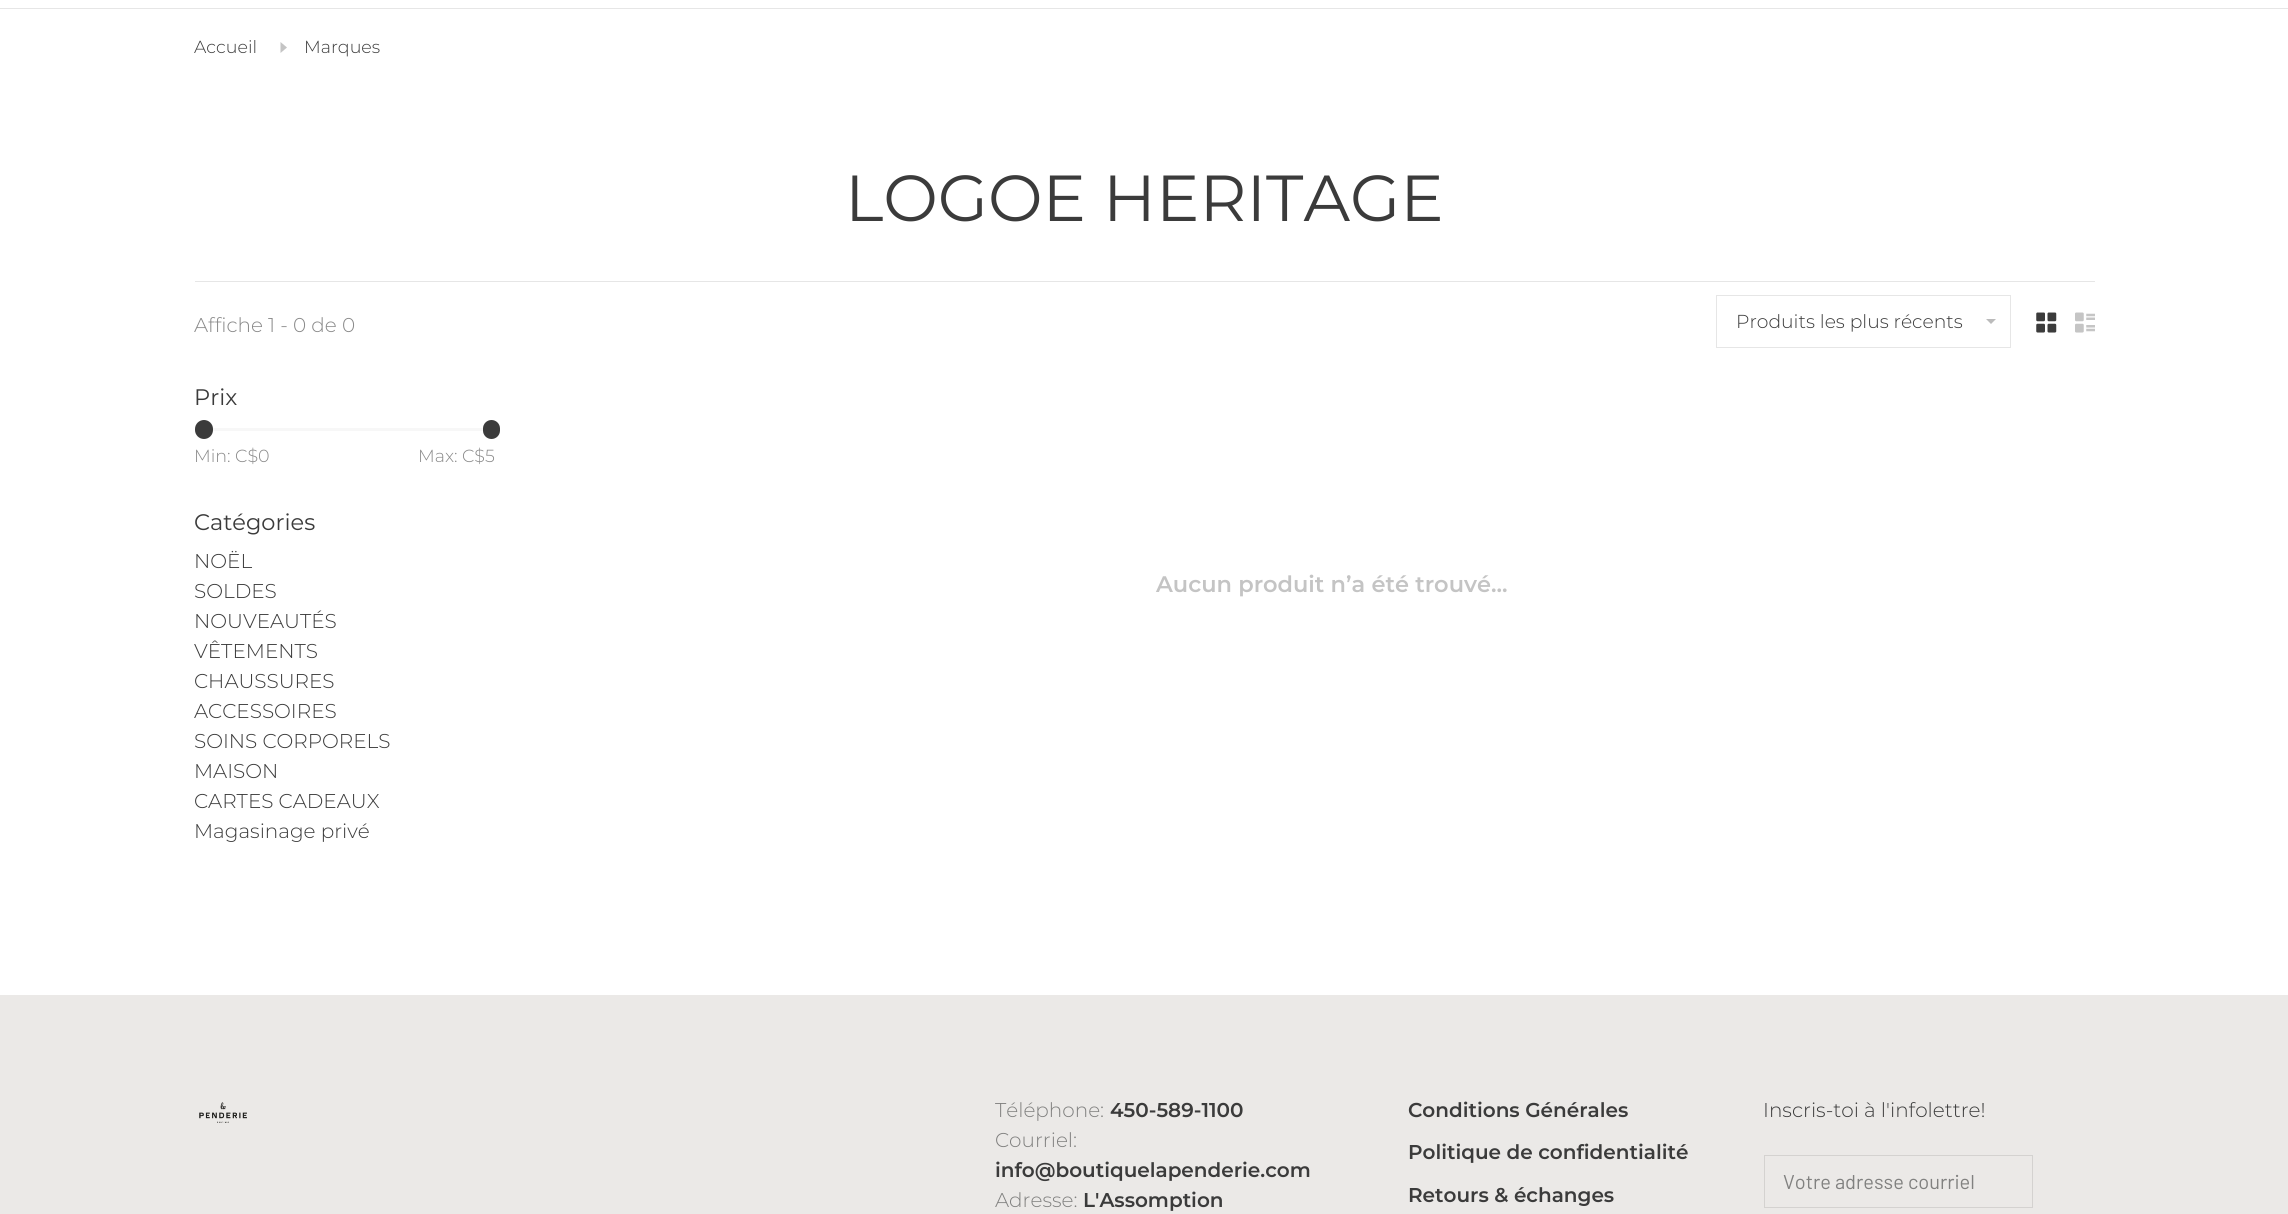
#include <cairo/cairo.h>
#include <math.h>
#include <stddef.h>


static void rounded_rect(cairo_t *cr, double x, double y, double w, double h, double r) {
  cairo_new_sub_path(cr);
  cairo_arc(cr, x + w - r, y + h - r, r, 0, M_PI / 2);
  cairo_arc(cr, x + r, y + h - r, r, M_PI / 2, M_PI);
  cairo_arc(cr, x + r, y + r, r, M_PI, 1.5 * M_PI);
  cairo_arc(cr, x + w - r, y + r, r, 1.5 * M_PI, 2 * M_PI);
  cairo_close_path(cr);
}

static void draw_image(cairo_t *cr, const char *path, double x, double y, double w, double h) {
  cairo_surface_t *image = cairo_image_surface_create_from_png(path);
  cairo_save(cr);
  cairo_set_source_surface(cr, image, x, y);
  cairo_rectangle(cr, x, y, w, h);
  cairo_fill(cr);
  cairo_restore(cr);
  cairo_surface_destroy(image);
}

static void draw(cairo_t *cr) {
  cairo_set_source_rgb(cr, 1, 1, 1);
  cairo_paint(cr);
  cairo_set_source_rgb(cr, 230 / 255.0, 230 / 255.0, 230 / 255.0);
  cairo_rectangle(cr, 0, 8, 2288, 1);
  cairo_fill(cr);
  cairo_set_source_rgb(cr, 196 / 255.0, 196 / 255.0, 196 / 255.0);
  cairo_new_path(cr);
  cairo_move_to(cr, 280.5, 53);
  cairo_line_to(cr, 287, 47.5);
  cairo_line_to(cr, 280.5, 42);
  cairo_close_path(cr);
  cairo_fill(cr);
  cairo_set_source_rgb(cr, 230 / 255.0, 230 / 255.0, 230 / 255.0);
  cairo_rectangle(cr, 195, 281, 1900, 1);
  cairo_fill(cr);
  cairo_rectangle(cr, 1716.5, 295.5, 294, 52);
  cairo_set_line_width(cr, 1);
  cairo_stroke(cr);
  cairo_set_source_rgb(cr, 187 / 255.0, 187 / 255.0, 187 / 255.0);
  cairo_new_path(cr);
  cairo_move_to(cr, 1986, 319);
  cairo_line_to(cr, 1996, 319);
  cairo_line_to(cr, 1991, 324);
  cairo_close_path(cr);
  cairo_fill(cr);
  draw_image(cr, "images/1.png", 2036, 312, 21, 21);
  draw_image(cr, "images/2.png", 2075, 312, 20, 21);
  cairo_set_source_rgb(cr, 247 / 255.0, 247 / 255.0, 247 / 255.0);
  cairo_rectangle(cr, 212, 428, 277, 3);
  cairo_fill(cr);
  cairo_set_source_rgb(cr, 59 / 255.0, 59 / 255.0, 59 / 255.0);
  rounded_rect(cr, 195, 420, 18, 19, 9);
  cairo_fill(cr);
  rounded_rect(cr, 483, 420, 17, 19, 8.5);
  cairo_fill(cr);
  cairo_set_source_rgb(cr, 235 / 255.0, 233 / 255.0, 231 / 255.0);
  cairo_rectangle(cr, 0, 995, 2288, 219);
  cairo_fill(cr);
  draw_image(cr, "images/3.png", 199, 1102, 48, 21);
  cairo_rectangle(cr, 1764.5, 1155.5, 268, 52);
  cairo_set_source_rgb(cr, 212 / 255.0, 210 / 255.0, 208 / 255.0);
  cairo_stroke(cr);
  cairo_select_font_face(cr, "Montserrat Light", CAIRO_FONT_SLANT_NORMAL, CAIRO_FONT_WEIGHT_NORMAL);
  cairo_set_font_size(cr, 17.5);
  cairo_set_source_rgb(cr, 59 / 255.0, 59 / 255.0, 59 / 255.0);
  cairo_move_to(cr, 194, 53);
  cairo_show_text(cr, "Accueil");
  cairo_move_to(cr, 304, 53);
  cairo_show_text(cr, "Marques");
  cairo_select_font_face(cr, "Montserrat", CAIRO_FONT_SLANT_NORMAL, CAIRO_FONT_WEIGHT_NORMAL);
  cairo_set_font_size(cr, 65);
  cairo_move_to(cr, 845, 221);
  cairo_show_text(cr, "LOGOE HERITAGE");
  cairo_select_font_face(cr, "Montserrat Light", CAIRO_FONT_SLANT_NORMAL, CAIRO_FONT_WEIGHT_NORMAL);
  cairo_set_font_size(cr, 20);
  cairo_set_source_rgb(cr, 137 / 255.0, 137 / 255.0, 137 / 255.0);
  cairo_move_to(cr, 194, 332);
  cairo_show_text(cr, "Affiche 1 - 0 de 0");
  cairo_set_font_size(cr, 18.75);
  cairo_set_source_rgb(cr, 59 / 255.0, 59 / 255.0, 59 / 255.0);
  cairo_move_to(cr, 1736, 328);
  cairo_show_text(cr, "Produits les plus récents");
  cairo_select_font_face(cr, "Montserrat", CAIRO_FONT_SLANT_NORMAL, CAIRO_FONT_WEIGHT_NORMAL);
  cairo_set_font_size(cr, 22.5);
  cairo_move_to(cr, 194, 405);
  cairo_show_text(cr, "Prix");
  cairo_select_font_face(cr, "Montserrat Light", CAIRO_FONT_SLANT_NORMAL, CAIRO_FONT_WEIGHT_NORMAL);
  cairo_set_font_size(cr, 17.5);
  cairo_set_source_rgb(cr, 137 / 255.0, 137 / 255.0, 137 / 255.0);
  cairo_move_to(cr, 194, 462);
  cairo_show_text(cr, "Min: C$0");
  cairo_move_to(cr, 418, 462);
  cairo_show_text(cr, "Max: C$5");
  cairo_select_font_face(cr, "Montserrat", CAIRO_FONT_SLANT_NORMAL, CAIRO_FONT_WEIGHT_NORMAL);
  cairo_set_font_size(cr, 22.5);
  cairo_set_source_rgb(cr, 59 / 255.0, 59 / 255.0, 59 / 255.0);
  cairo_move_to(cr, 194, 530);
  cairo_show_text(cr, "Catégories");
  cairo_select_font_face(cr, "Montserrat Light", CAIRO_FONT_SLANT_NORMAL, CAIRO_FONT_WEIGHT_NORMAL);
  cairo_set_font_size(cr, 20);
  cairo_move_to(cr, 194, 568);
  cairo_show_text(cr, "NOËL");
  cairo_move_to(cr, 194, 598);
  cairo_show_text(cr, "SOLDES");
  cairo_move_to(cr, 194, 628);
  cairo_show_text(cr, "NOUVEAUTÉS");
  cairo_move_to(cr, 194, 658);
  cairo_show_text(cr, "VÊTEMENTS");
  cairo_move_to(cr, 194, 688);
  cairo_show_text(cr, "CHAUSSURES");
  cairo_move_to(cr, 194, 718);
  cairo_show_text(cr, "ACCESSOIRES");
  cairo_move_to(cr, 194, 748);
  cairo_show_text(cr, "SOINS CORPORELS");
  cairo_move_to(cr, 194, 778);
  cairo_show_text(cr, "MAISON");
  cairo_move_to(cr, 194, 808);
  cairo_show_text(cr, "CARTES CADEAUX");
  cairo_move_to(cr, 194, 838);
  cairo_show_text(cr, "Magasinage privé");
  cairo_select_font_face(cr, "Montserrat SemiBold", CAIRO_FONT_SLANT_NORMAL, CAIRO_FONT_WEIGHT_NORMAL);
  cairo_set_font_size(cr, 22.5);
  cairo_set_source_rgb(cr, 196 / 255.0, 196 / 255.0, 196 / 255.0);
  cairo_move_to(cr, 1156, 592);
  cairo_show_text(cr, "Aucun produit n’a été trouvé...");
  cairo_select_font_face(cr, "Montserrat Light", CAIRO_FONT_SLANT_NORMAL, CAIRO_FONT_WEIGHT_NORMAL);
  cairo_set_font_size(cr, 20);
  cairo_set_source_rgb(cr, 129 / 255.0, 129 / 255.0, 128 / 255.0);
  cairo_move_to(cr, 995, 1117);
  cairo_show_text(cr, "Téléphone:");
  cairo_select_font_face(cr, "Montserrat SemiBold", CAIRO_FONT_SLANT_NORMAL, CAIRO_FONT_WEIGHT_NORMAL);
  cairo_set_source_rgb(cr, 59 / 255.0, 59 / 255.0, 59 / 255.0);
  cairo_move_to(cr, 1110, 1117);
  cairo_show_text(cr, "450-589-1100");
  cairo_select_font_face(cr, "Montserrat Light", CAIRO_FONT_SLANT_NORMAL, CAIRO_FONT_WEIGHT_NORMAL);
  cairo_set_source_rgb(cr, 129 / 255.0, 129 / 255.0, 128 / 255.0);
  cairo_move_to(cr, 995, 1147);
  cairo_show_text(cr, "Courriel:");
  cairo_select_font_face(cr, "Montserrat SemiBold", CAIRO_FONT_SLANT_NORMAL, CAIRO_FONT_WEIGHT_NORMAL);
  cairo_set_source_rgb(cr, 59 / 255.0, 59 / 255.0, 59 / 255.0);
  cairo_move_to(cr, 995, 1177);
  cairo_show_text(cr, "info@boutiquelapenderie.com");
  cairo_select_font_face(cr, "Montserrat Light", CAIRO_FONT_SLANT_NORMAL, CAIRO_FONT_WEIGHT_NORMAL);
  cairo_set_source_rgb(cr, 129 / 255.0, 129 / 255.0, 128 / 255.0);
  cairo_move_to(cr, 995, 1207);
  cairo_show_text(cr, "Adresse:");
  cairo_select_font_face(cr, "Montserrat SemiBold", CAIRO_FONT_SLANT_NORMAL, CAIRO_FONT_WEIGHT_NORMAL);
  cairo_set_source_rgb(cr, 59 / 255.0, 59 / 255.0, 59 / 255.0);
  cairo_move_to(cr, 1083, 1207);
  cairo_show_text(cr, "L'Assomption");
  cairo_move_to(cr, 1408, 1117);
  cairo_show_text(cr, "Conditions Générales");
  cairo_move_to(cr, 1408, 1159);
  cairo_show_text(cr, "Politique de confidentialité");
  cairo_move_to(cr, 1408, 1202);
  cairo_show_text(cr, "Retours & échanges");
  cairo_select_font_face(cr, "Montserrat Light", CAIRO_FONT_SLANT_NORMAL, CAIRO_FONT_WEIGHT_NORMAL);
  cairo_move_to(cr, 1763, 1117);
  cairo_show_text(cr, "Inscris-toi à l'infolettre!");
  cairo_select_font_face(cr, "Barlow", CAIRO_FONT_SLANT_NORMAL, CAIRO_FONT_WEIGHT_NORMAL);
  cairo_set_source_rgb(cr, 129 / 255.0, 129 / 255.0, 128 / 255.0);
  cairo_move_to(cr, 1783, 1189);
  cairo_show_text(cr, "Votre adresse courriel");
}

int main(void) {
  cairo_surface_t *surface = cairo_image_surface_create(CAIRO_FORMAT_RGB24, 2288, 1214);
  cairo_t *cr = cairo_create(surface);
  cairo_font_options_t *options = cairo_font_options_create();
  cairo_font_options_set_hint_metrics(options, CAIRO_HINT_METRICS_OFF);
  cairo_font_options_set_hint_style(options, CAIRO_HINT_STYLE_NONE);
  cairo_set_font_options(cr, options);
  cairo_set_miter_limit(cr, 4);
  draw(cr);
  cairo_surface_write_to_png(surface, "out.png");
  cairo_font_options_destroy(options);
  cairo_destroy(cr);
  cairo_surface_destroy(surface);
  return 0;
}
